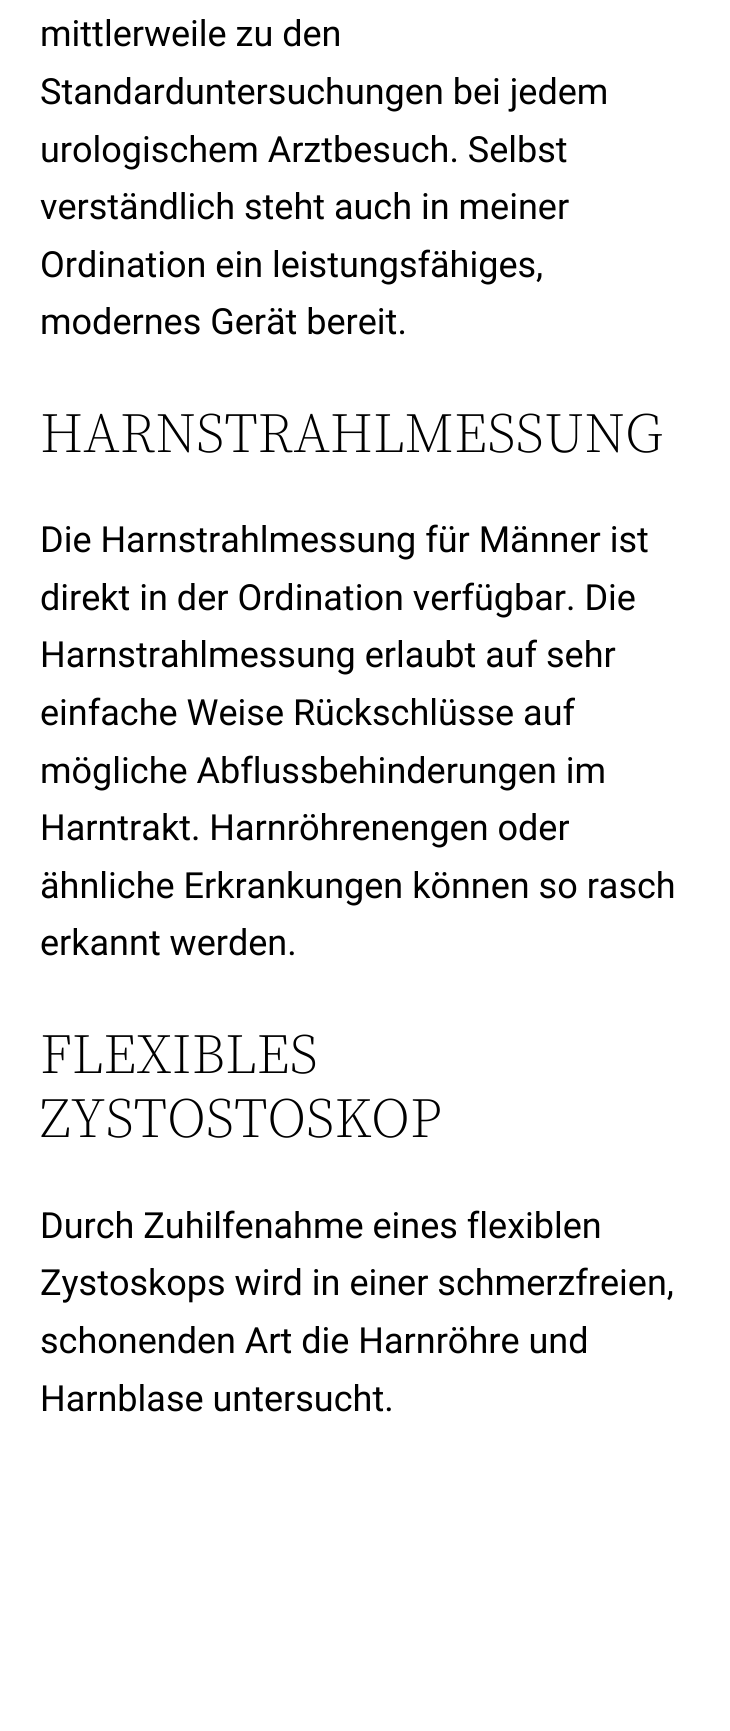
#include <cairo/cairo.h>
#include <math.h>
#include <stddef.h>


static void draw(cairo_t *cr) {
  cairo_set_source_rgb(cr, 1, 1, 1);
  cairo_paint(cr);
  cairo_select_font_face(cr, "Roboto", CAIRO_FONT_SLANT_NORMAL, CAIRO_FONT_WEIGHT_NORMAL);
  cairo_set_font_size(cr, 36);
  cairo_set_source_rgb(cr, 0, 0, 0);
  cairo_move_to(cr, 40, 46);
  cairo_show_text(cr, "mittlerweile zu den");
  cairo_move_to(cr, 40, 104);
  cairo_show_text(cr, "Standarduntersuchungen bei jedem");
  cairo_move_to(cr, 40, 162);
  cairo_show_text(cr, "urologischem Arztbesuch. Selbst");
  cairo_move_to(cr, 40, 219);
  cairo_show_text(cr, "verständlich steht auch in meiner");
  cairo_move_to(cr, 40, 277);
  cairo_show_text(cr, "Ordination ein leistungsfähiges,");
  cairo_move_to(cr, 40, 334);
  cairo_show_text(cr, "modernes Gerät bereit.");
  cairo_select_font_face(cr, "Source Serif 4 Light", CAIRO_FONT_SLANT_NORMAL, CAIRO_FONT_WEIGHT_NORMAL);
  cairo_set_font_size(cr, 56);
  cairo_move_to(cr, 40, 452);
  cairo_show_text(cr, "HARNSTRAHLMESSUNG");
  cairo_select_font_face(cr, "Roboto", CAIRO_FONT_SLANT_NORMAL, CAIRO_FONT_WEIGHT_NORMAL);
  cairo_set_font_size(cr, 36);
  cairo_move_to(cr, 40, 552);
  cairo_show_text(cr, "Die Harnstrahlmessung für Männer ist");
  cairo_move_to(cr, 40, 610);
  cairo_show_text(cr, "direkt in der Ordination verfügbar. Die");
  cairo_move_to(cr, 40, 667);
  cairo_show_text(cr, "Harnstrahlmessung erlaubt auf sehr");
  cairo_move_to(cr, 40, 725);
  cairo_show_text(cr, "einfache Weise Rückschlüsse auf");
  cairo_move_to(cr, 40, 783);
  cairo_show_text(cr, "mögliche Abflussbehinderungen im");
  cairo_move_to(cr, 40, 840);
  cairo_show_text(cr, "Harntrakt. Harnröhrenengen oder");
  cairo_move_to(cr, 40, 898);
  cairo_show_text(cr, "ähnliche Erkrankungen können so rasch");
  cairo_move_to(cr, 40, 955);
  cairo_show_text(cr, "erkannt werden.");
  cairo_select_font_face(cr, "Source Serif 4 Light", CAIRO_FONT_SLANT_NORMAL, CAIRO_FONT_WEIGHT_NORMAL);
  cairo_set_font_size(cr, 56);
  cairo_move_to(cr, 40, 1073);
  cairo_show_text(cr, "FLEXIBLES");
  cairo_move_to(cr, 40, 1137);
  cairo_show_text(cr, "ZYSTOSTOSKOP");
  cairo_select_font_face(cr, "Roboto", CAIRO_FONT_SLANT_NORMAL, CAIRO_FONT_WEIGHT_NORMAL);
  cairo_set_font_size(cr, 36);
  cairo_move_to(cr, 40, 1238);
  cairo_show_text(cr, "Durch Zuhilfenahme eines flexiblen");
  cairo_move_to(cr, 40, 1295);
  cairo_show_text(cr, "Zystoskops wird in einer schmerzfreien,");
  cairo_move_to(cr, 40, 1353);
  cairo_show_text(cr, "schonenden Art die Harnröhre und");
  cairo_move_to(cr, 40, 1411);
  cairo_show_text(cr, "Harnblase untersucht.");
}

int main(void) {
  cairo_surface_t *surface = cairo_image_surface_create(CAIRO_FORMAT_RGB24, 730, 1731);
  cairo_t *cr = cairo_create(surface);
  cairo_font_options_t *options = cairo_font_options_create();
  cairo_font_options_set_hint_metrics(options, CAIRO_HINT_METRICS_OFF);
  cairo_font_options_set_hint_style(options, CAIRO_HINT_STYLE_NONE);
  cairo_set_font_options(cr, options);
  cairo_set_miter_limit(cr, 4);
  draw(cr);
  cairo_surface_write_to_png(surface, "out.png");
  cairo_font_options_destroy(options);
  cairo_destroy(cr);
  cairo_surface_destroy(surface);
  return 0;
}
